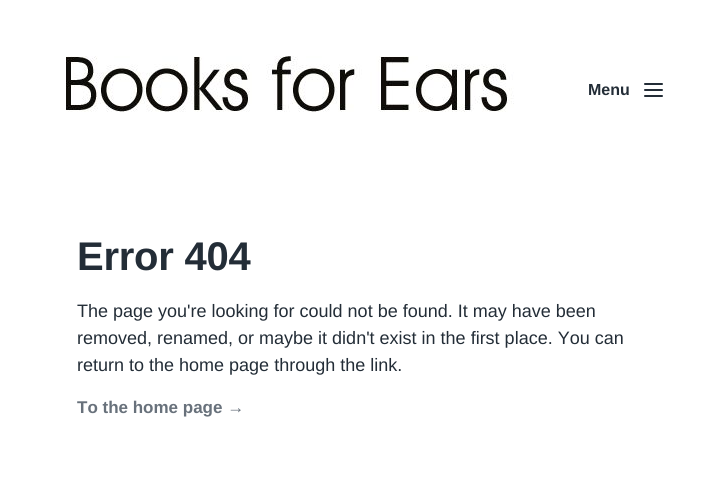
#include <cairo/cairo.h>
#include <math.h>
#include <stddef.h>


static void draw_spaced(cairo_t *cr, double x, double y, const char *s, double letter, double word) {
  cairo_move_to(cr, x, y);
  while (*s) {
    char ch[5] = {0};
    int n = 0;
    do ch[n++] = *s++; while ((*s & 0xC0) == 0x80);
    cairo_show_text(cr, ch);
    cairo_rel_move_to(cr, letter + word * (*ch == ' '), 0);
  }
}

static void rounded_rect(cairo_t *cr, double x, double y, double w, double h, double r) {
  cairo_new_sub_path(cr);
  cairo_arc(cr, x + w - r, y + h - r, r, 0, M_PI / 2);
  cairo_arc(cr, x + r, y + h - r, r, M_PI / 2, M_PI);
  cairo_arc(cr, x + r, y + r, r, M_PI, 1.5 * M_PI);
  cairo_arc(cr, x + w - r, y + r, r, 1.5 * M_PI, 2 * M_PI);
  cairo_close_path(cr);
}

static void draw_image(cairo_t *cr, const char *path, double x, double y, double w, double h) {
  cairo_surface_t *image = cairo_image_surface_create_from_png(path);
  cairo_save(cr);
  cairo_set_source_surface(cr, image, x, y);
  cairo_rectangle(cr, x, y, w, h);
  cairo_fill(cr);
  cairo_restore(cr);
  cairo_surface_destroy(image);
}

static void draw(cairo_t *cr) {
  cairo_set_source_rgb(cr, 1, 1, 1);
  cairo_paint(cr);
  draw_image(cr, "images/1.png", 66, 56, 448, 56);
  cairo_set_source_rgb(cr, 35 / 255.0, 45 / 255.0, 55 / 255.0);
  rounded_rect(cr, 644, 83, 19, 2, 1);
  cairo_fill(cr);
  rounded_rect(cr, 644, 89, 19, 2, 1);
  cairo_fill(cr);
  rounded_rect(cr, 644, 95, 19, 2, 1);
  cairo_fill(cr);
  cairo_select_font_face(cr, "Liberation Sans", CAIRO_FONT_SLANT_NORMAL, CAIRO_FONT_WEIGHT_BOLD);
  cairo_set_font_size(cr, 16);
  cairo_move_to(cr, 588, 95);
  cairo_show_text(cr, "Menu");
  cairo_set_font_size(cr, 40);
  draw_spaced(cr, 77, 270, "Error 404", -0.25, 0);
  cairo_select_font_face(cr, "Liberation Sans", CAIRO_FONT_SLANT_NORMAL, CAIRO_FONT_WEIGHT_NORMAL);
  cairo_set_font_size(cr, 18);
  cairo_move_to(cr, 77, 317);
  cairo_show_text(cr, "The page you're looking for could not be found. It may have been");
  cairo_move_to(cr, 77, 344);
  cairo_show_text(cr, "removed, renamed, or maybe it didn't exist in the first place. You can");
  cairo_move_to(cr, 77, 371);
  cairo_show_text(cr, "return to the home page through the link.");
  cairo_select_font_face(cr, "Liberation Sans", CAIRO_FONT_SLANT_NORMAL, CAIRO_FONT_WEIGHT_BOLD);
  cairo_set_font_size(cr, 17);
  cairo_set_source_rgb(cr, 104 / 255.0, 113 / 255.0, 123 / 255.0);
  cairo_move_to(cr, 77, 413);
  cairo_show_text(cr, "To the home page →");
}

int main(void) {
  cairo_surface_t *surface = cairo_image_surface_create(CAIRO_FORMAT_RGB24, 713, 485);
  cairo_t *cr = cairo_create(surface);
  cairo_font_options_t *options = cairo_font_options_create();
  cairo_font_options_set_hint_metrics(options, CAIRO_HINT_METRICS_OFF);
  cairo_font_options_set_hint_style(options, CAIRO_HINT_STYLE_NONE);
  cairo_set_font_options(cr, options);
  cairo_set_miter_limit(cr, 4);
  draw(cr);
  cairo_surface_write_to_png(surface, "out.png");
  cairo_font_options_destroy(options);
  cairo_destroy(cr);
  cairo_surface_destroy(surface);
  return 0;
}
